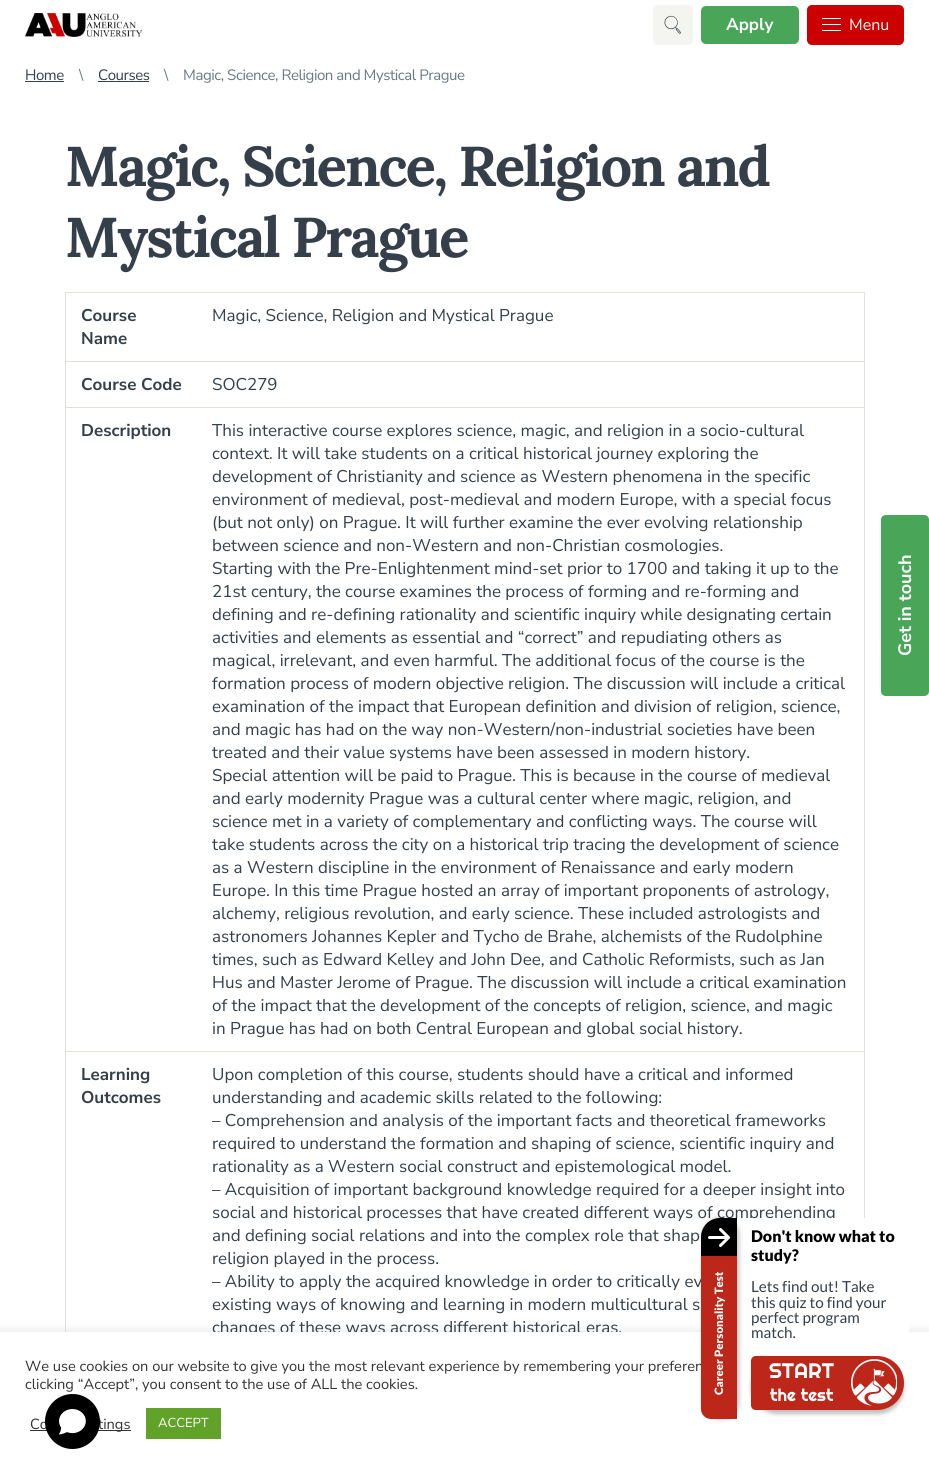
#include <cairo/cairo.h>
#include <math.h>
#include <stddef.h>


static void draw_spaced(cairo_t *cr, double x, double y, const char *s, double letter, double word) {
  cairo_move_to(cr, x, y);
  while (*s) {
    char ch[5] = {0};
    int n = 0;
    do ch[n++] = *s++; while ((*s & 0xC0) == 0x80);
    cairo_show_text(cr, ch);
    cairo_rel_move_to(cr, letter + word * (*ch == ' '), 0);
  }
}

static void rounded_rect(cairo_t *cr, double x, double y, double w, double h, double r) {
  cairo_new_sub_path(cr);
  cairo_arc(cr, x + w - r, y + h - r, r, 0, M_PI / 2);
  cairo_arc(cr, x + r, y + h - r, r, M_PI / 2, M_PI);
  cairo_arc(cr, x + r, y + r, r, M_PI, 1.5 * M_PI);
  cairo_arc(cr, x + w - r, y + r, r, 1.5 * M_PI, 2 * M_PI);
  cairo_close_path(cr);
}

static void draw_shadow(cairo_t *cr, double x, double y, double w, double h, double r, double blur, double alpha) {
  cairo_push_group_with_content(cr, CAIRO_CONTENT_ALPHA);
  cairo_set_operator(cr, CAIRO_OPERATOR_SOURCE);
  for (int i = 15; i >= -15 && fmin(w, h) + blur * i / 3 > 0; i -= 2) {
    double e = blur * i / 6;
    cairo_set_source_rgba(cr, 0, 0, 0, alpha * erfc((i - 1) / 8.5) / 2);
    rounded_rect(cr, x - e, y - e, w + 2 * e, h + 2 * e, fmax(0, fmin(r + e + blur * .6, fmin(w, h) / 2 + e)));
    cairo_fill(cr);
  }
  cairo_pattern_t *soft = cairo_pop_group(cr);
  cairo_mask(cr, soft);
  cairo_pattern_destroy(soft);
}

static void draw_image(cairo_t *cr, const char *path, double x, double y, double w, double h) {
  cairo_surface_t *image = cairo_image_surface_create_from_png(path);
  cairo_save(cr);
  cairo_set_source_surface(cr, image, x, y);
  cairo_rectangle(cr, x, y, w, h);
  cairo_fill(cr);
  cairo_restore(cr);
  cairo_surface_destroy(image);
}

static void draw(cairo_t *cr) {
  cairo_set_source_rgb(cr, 1, 1, 1);
  cairo_paint(cr);
  draw_image(cr, "images/1.png", 25, 13, 117, 24);
  cairo_set_source_rgb(cr, 244 / 255.0, 244 / 255.0, 241 / 255.0);
  rounded_rect(cr, 653, 5, 40, 40, 5);
  cairo_fill(cr);
  draw_image(cr, "images/2.png", 664, 15, 17, 19);
  cairo_set_source_rgb(cr, 73 / 255.0, 166 / 255.0, 88 / 255.0);
  rounded_rect(cr, 701, 6, 98, 38, 5);
  cairo_fill(cr);
  cairo_set_source_rgb(cr, 205 / 255.0, 0, 0);
  rounded_rect(cr, 807, 5, 97, 40, 5);
  cairo_fill(cr);
  cairo_set_source_rgb(cr, 1, 1, 1);
  cairo_rectangle(cr, 822, 24, 19, 1);
  cairo_fill(cr);
  cairo_rectangle(cr, 822, 18, 19, 1);
  cairo_fill(cr);
  cairo_rectangle(cr, 822, 30, 19, 1);
  cairo_fill(cr);
  cairo_set_source_rgb(cr, 52 / 255.0, 63 / 255.0, 73 / 255.0);
  cairo_rectangle(cr, 25, 81, 39, 1);
  cairo_fill(cr);
  cairo_rectangle(cr, 98, 81, 51, 1);
  cairo_fill(cr);
  cairo_set_source_rgb(cr, 224 / 255.0, 224 / 255.0, 217 / 255.0);
  cairo_rectangle(cr, 65, 292, 800, 1);
  cairo_fill(cr);
  cairo_rectangle(cr, 864, 292, 1, 926);
  cairo_fill(cr);
  cairo_rectangle(cr, 65, 292, 1, 1040);
  cairo_fill(cr);
  cairo_rectangle(cr, 65, 361, 800, 1);
  cairo_fill(cr);
  cairo_rectangle(cr, 65, 407, 800, 1);
  cairo_fill(cr);
  cairo_rectangle(cr, 65, 1051, 800, 1);
  cairo_fill(cr);
  cairo_set_source_rgb(cr, 73 / 255.0, 166 / 255.0, 88 / 255.0);
  cairo_new_path(cr);
  cairo_move_to(cr, 924, 696);
  cairo_line_to(cr, 886, 696);
  cairo_curve_to(cr, 883, 696, 881, 694, 881, 691);
  cairo_line_to(cr, 881, 520);
  cairo_curve_to(cr, 881, 517, 883, 515, 886, 515);
  cairo_line_to(cr, 924, 515);
  cairo_curve_to(cr, 927, 515, 929, 517, 929, 520);
  cairo_line_to(cr, 929, 691);
  cairo_curve_to(cr, 929, 694, 927, 696, 924, 696);
  cairo_close_path(cr);
  cairo_fill(cr);
  cairo_set_source_rgb(cr, 172 / 255.0, 171 / 255.0, 171 / 255.0);
  draw_shadow(cr, 0, 1331, 929, 137, 0, 5, 0.3);
  cairo_select_font_face(cr, "Nunito Sans", CAIRO_FONT_SLANT_NORMAL, CAIRO_FONT_WEIGHT_BOLD);
  cairo_set_font_size(cr, 17);
  cairo_set_source_rgb(cr, 1, 1, 1);
  cairo_move_to(cr, 726, 30);
  cairo_show_text(cr, "Apply");
  cairo_select_font_face(cr, "Nunito Sans", CAIRO_FONT_SLANT_NORMAL, CAIRO_FONT_WEIGHT_NORMAL);
  cairo_set_font_size(cr, 16);
  cairo_move_to(cr, 849, 30);
  cairo_show_text(cr, "Menu");
  cairo_set_font_size(cr, 15);
  cairo_set_source_rgb(cr, 52 / 255.0, 63 / 255.0, 73 / 255.0);
  draw_spaced(cr, 25, 80, "Home", -0.45, 0);
  cairo_set_source_rgb(cr, 106 / 255.0, 120 / 255.0, 132 / 255.0);
  draw_spaced(cr, 79, 80, "\\", -0.45, 0);
  cairo_set_source_rgb(cr, 52 / 255.0, 63 / 255.0, 73 / 255.0);
  draw_spaced(cr, 98, 80, "Courses", -0.45, 0);
  cairo_set_source_rgb(cr, 106 / 255.0, 120 / 255.0, 132 / 255.0);
  draw_spaced(cr, 164, 80, "\\", -0.45, 0);
  draw_spaced(cr, 183, 80, "Magic, Science, Religion and Mystical Prague", -0.45, 0);
  cairo_select_font_face(cr, "Lora", CAIRO_FONT_SLANT_NORMAL, CAIRO_FONT_WEIGHT_BOLD);
  cairo_set_font_size(cr, 56);
  cairo_set_source_rgb(cr, 52 / 255.0, 63 / 255.0, 73 / 255.0);
  draw_spaced(cr, 65, 186, "Magic, Science, Religion and", -2, 0);
  draw_spaced(cr, 65, 257, "Mystical Prague", -2, 0);
  cairo_select_font_face(cr, "Nunito Sans", CAIRO_FONT_SLANT_NORMAL, CAIRO_FONT_WEIGHT_BOLD);
  cairo_set_font_size(cr, 17);
  cairo_move_to(cr, 81, 321);
  cairo_show_text(cr, "Course");
  cairo_move_to(cr, 81, 344);
  cairo_show_text(cr, "Name");
  cairo_select_font_face(cr, "Nunito Sans", CAIRO_FONT_SLANT_NORMAL, CAIRO_FONT_WEIGHT_NORMAL);
  cairo_move_to(cr, 212, 321);
  cairo_show_text(cr, "Magic, Science, Religion and Mystical Prague");
  cairo_select_font_face(cr, "Nunito Sans", CAIRO_FONT_SLANT_NORMAL, CAIRO_FONT_WEIGHT_BOLD);
  cairo_move_to(cr, 81, 390);
  cairo_show_text(cr, "Course Code");
  cairo_select_font_face(cr, "Nunito Sans", CAIRO_FONT_SLANT_NORMAL, CAIRO_FONT_WEIGHT_NORMAL);
  cairo_move_to(cr, 212, 390);
  cairo_show_text(cr, "SOC279");
  cairo_select_font_face(cr, "Nunito Sans", CAIRO_FONT_SLANT_NORMAL, CAIRO_FONT_WEIGHT_BOLD);
  cairo_move_to(cr, 81, 436);
  cairo_show_text(cr, "Description");
  cairo_select_font_face(cr, "Nunito Sans", CAIRO_FONT_SLANT_NORMAL, CAIRO_FONT_WEIGHT_NORMAL);
  cairo_move_to(cr, 212, 436);
  cairo_show_text(cr, "This interactive course explores science, magic, and religion in a socio-cultural");
  cairo_move_to(cr, 212, 459);
  cairo_show_text(cr, "context. It will take students on a critical historical journey exploring the");
  cairo_move_to(cr, 212, 482);
  cairo_show_text(cr, "development of Christianity and science as Western phenomena in the specific");
  cairo_move_to(cr, 212, 505);
  cairo_show_text(cr, "environment of medieval, post-medieval and modern Europe, with a special focus");
  cairo_move_to(cr, 212, 528);
  cairo_show_text(cr, "(but not only) on Prague. It will further examine the ever evolving relationship");
  cairo_move_to(cr, 212, 551);
  cairo_show_text(cr, "between science and non-Western and non-Christian cosmologies.");
  cairo_move_to(cr, 212, 574);
  cairo_show_text(cr, "Starting with the Pre-Enlightenment mind-set prior to 1700 and taking it up to the");
  cairo_move_to(cr, 212, 597);
  cairo_show_text(cr, "21st century, the course examines the process of forming and re-forming and");
  cairo_move_to(cr, 212, 620);
  cairo_show_text(cr, "defining and re-defining rationality and scientific inquiry while designating certain");
  cairo_move_to(cr, 212, 643);
  cairo_show_text(cr, "activities and elements as essential and “correct” and repudiating others as");
  cairo_move_to(cr, 212, 666);
  cairo_show_text(cr, "magical, irrelevant, and even harmful. The additional focus of the course is the");
  cairo_move_to(cr, 212, 689);
  cairo_show_text(cr, "formation process of modern objective religion. The discussion will include a critical");
  cairo_move_to(cr, 212, 712);
  cairo_show_text(cr, "examination of the impact that European definition and division of religion, science,");
  cairo_move_to(cr, 212, 735);
  cairo_show_text(cr, "and magic has had on the way non-Western/non-industrial societies have been");
  cairo_move_to(cr, 212, 758);
  cairo_show_text(cr, "treated and their value systems have been assessed in modern history.");
  cairo_move_to(cr, 212, 781);
  cairo_show_text(cr, "Special attention will be paid to Prague. This is because in the course of medieval");
  cairo_move_to(cr, 212, 804);
  cairo_show_text(cr, "and early modernity Prague was a cultural center where magic, religion, and");
  cairo_move_to(cr, 212, 827);
  cairo_show_text(cr, "science met in a variety of complementary and conflicting ways. The course will");
  cairo_move_to(cr, 212, 850);
  cairo_show_text(cr, "take students across the city on a historical trip tracing the development of science");
  cairo_move_to(cr, 212, 873);
  cairo_show_text(cr, "as a Western discipline in the environment of Renaissance and early modern");
  cairo_move_to(cr, 212, 896);
  cairo_show_text(cr, "Europe. In this time Prague hosted an array of important proponents of astrology,");
  cairo_move_to(cr, 212, 919);
  cairo_show_text(cr, "alchemy, religious revolution, and early science. These included astrologists and");
  cairo_move_to(cr, 212, 942);
  cairo_show_text(cr, "astronomers Johannes Kepler and Tycho de Brahe, alchemists of the Rudolphine");
  cairo_move_to(cr, 212, 965);
  cairo_show_text(cr, "times, such as Edward Kelley and John Dee, and Catholic Reformists, such as Jan");
  cairo_move_to(cr, 212, 988);
  cairo_show_text(cr, "Hus and Master Jerome of Prague. The discussion will include a critical examination");
  cairo_move_to(cr, 212, 1011);
  cairo_show_text(cr, "of the impact that the development of the concepts of religion, science, and magic");
  cairo_move_to(cr, 212, 1034);
  cairo_show_text(cr, "in Prague has had on both Central European and global social history.");
  cairo_select_font_face(cr, "Nunito Sans", CAIRO_FONT_SLANT_NORMAL, CAIRO_FONT_WEIGHT_BOLD);
  cairo_move_to(cr, 81, 1080);
  cairo_show_text(cr, "Learning");
  cairo_move_to(cr, 81, 1103);
  cairo_show_text(cr, "Outcomes");
  cairo_select_font_face(cr, "Nunito Sans", CAIRO_FONT_SLANT_NORMAL, CAIRO_FONT_WEIGHT_NORMAL);
  cairo_move_to(cr, 212, 1080);
  cairo_show_text(cr, "Upon completion of this course, students should have a critical and informed");
  cairo_move_to(cr, 212, 1103);
  cairo_show_text(cr, "understanding and academic skills related to the following:");
  cairo_move_to(cr, 212, 1126);
  cairo_show_text(cr, "– Comprehension and analysis of the important facts and theoretical frameworks");
  cairo_move_to(cr, 212, 1149);
  cairo_show_text(cr, "required to understand the formation and shaping of science, scientific inquiry and");
  cairo_move_to(cr, 212, 1172);
  cairo_show_text(cr, "rationality as a Western social construct and epistemological model.");
  cairo_move_to(cr, 212, 1195);
  cairo_show_text(cr, "– Acquisition of important background knowledge required for a deeper insight into");
  cairo_move_to(cr, 212, 1218);
  cairo_show_text(cr, "social and historical processes that have created different ways of comprehending");
  cairo_move_to(cr, 212, 1241);
  cairo_show_text(cr, "and defining social relations and into the complex role that shap");
  cairo_move_to(cr, 212, 1264);
  cairo_show_text(cr, "religion played in the process.");
  cairo_move_to(cr, 212, 1287);
  cairo_show_text(cr, "– Ability to apply the acquired knowledge in order to critically ev");
  cairo_move_to(cr, 212, 1310);
  cairo_show_text(cr, "existing ways of knowing and learning in modern multicultural s");
  cairo_move_to(cr, 212, 1333);
  cairo_show_text(cr, "changes of these ways across different historical eras.");
  cairo_select_font_face(cr, "Nunito Sans", CAIRO_FONT_SLANT_NORMAL, CAIRO_FONT_WEIGHT_BOLD);
  cairo_set_font_size(cr, 18);
  cairo_set_source_rgb(cr, 1, 1, 1);
  cairo_save(cr);
  cairo_translate(cr, 911, 656);
  cairo_rotate(cr, -90 * M_PI / 180);
  cairo_move_to(cr, 0, 0);
  cairo_show_text(cr, "Get in touch");
  cairo_restore(cr);
  cairo_rectangle(cr, 0, 1332, 929, 137);
  cairo_fill(cr);
  cairo_select_font_face(cr, "Nunito Sans", CAIRO_FONT_SLANT_NORMAL, CAIRO_FONT_WEIGHT_NORMAL);
  cairo_set_font_size(cr, 14.65);
  cairo_set_source_rgb(cr, 51 / 255.0, 51 / 255.0, 51 / 255.0);
  cairo_move_to(cr, 25, 1371);
  cairo_show_text(cr, "We use cookies on our website to give you the most relevant experience by remembering your preferen");
  cairo_move_to(cr, 25, 1389);
  cairo_show_text(cr, "clicking “Accept”, you consent to the use of ALL the cookies.");
  cairo_move_to(cr, 30, 1429);
  cairo_show_text(cr, "Co");
  cairo_rectangle(cr, 30, 1430, 101, 1);
  cairo_fill(cr);
  cairo_move_to(cr, 98, 1429);
  cairo_show_text(cr, "tings");
  cairo_set_source_rgb(cr, 97 / 255.0, 162 / 255.0, 41 / 255.0);
  cairo_rectangle(cr, 146, 1408, 75, 31);
  cairo_fill(cr);
  cairo_set_font_size(cr, 13);
  cairo_set_source_rgb(cr, 1, 1, 1);
  cairo_move_to(cr, 158, 1427);
  cairo_show_text(cr, "ACCEPT");
  cairo_new_path(cr);
  cairo_move_to(cr, 733, 1218);
  cairo_line_to(cr, 899, 1218);
  cairo_curve_to(cr, 904.5, 1218, 909, 1222.5, 909, 1228);
  cairo_line_to(cr, 909, 1387);
  cairo_curve_to(cr, 909, 1404.5, 894.5, 1419, 877, 1419);
  cairo_line_to(cr, 717, 1419);
  cairo_curve_to(cr, 708, 1419, 701, 1412, 701, 1403);
  cairo_line_to(cr, 701, 1250);
  cairo_curve_to(cr, 701, 1232.5, 715.5, 1218, 733, 1218);
  cairo_close_path(cr);
  cairo_fill(cr);
  cairo_set_source_rgb(cr, 0, 0, 0);
  draw_shadow(cr, 703, 1218, 36, 201, 30, 2.5, 0.25);
  cairo_set_source_rgb(cr, 0, 0, 0);
  cairo_new_path(cr);
  cairo_move_to(cr, 720, 1218);
  cairo_line_to(cr, 737, 1218);
  cairo_line_to(cr, 737, 1256);
  cairo_line_to(cr, 701, 1256);
  cairo_line_to(cr, 701, 1237);
  cairo_curve_to(cr, 701, 1226.5, 709.5, 1218, 720, 1218);
  cairo_close_path(cr);
  cairo_fill(cr);
  cairo_new_path(cr);
  cairo_move_to(cr, 709.5, 1237.5);
  cairo_line_to(cr, 728.5, 1237.5);
  cairo_move_to(cr, 720.5, 1229.5);
  cairo_line_to(cr, 728.5, 1237.5);
  cairo_line_to(cr, 720.5, 1245.5);
  cairo_set_source_rgb(cr, 1, 1, 1);
  cairo_set_line_width(cr, 3);
  cairo_set_line_cap(cr, CAIRO_LINE_CAP_ROUND);
  cairo_set_line_join(cr, CAIRO_LINE_JOIN_ROUND);
  cairo_stroke(cr);
  cairo_set_source_rgb(cr, 188 / 255.0, 39 / 255.0, 26 / 255.0);
  cairo_new_path(cr);
  cairo_move_to(cr, 701, 1256);
  cairo_line_to(cr, 737, 1256);
  cairo_line_to(cr, 737, 1419);
  cairo_line_to(cr, 711, 1419);
  cairo_curve_to(cr, 705.5, 1419, 701, 1414.5, 701, 1409);
  cairo_close_path(cr);
  cairo_fill(cr);
  cairo_select_font_face(cr, "Lato Black", CAIRO_FONT_SLANT_NORMAL, CAIRO_FONT_WEIGHT_NORMAL);
  cairo_set_font_size(cr, 11.5);
  cairo_set_source_rgb(cr, 1, 1, 1);
  cairo_save(cr);
  cairo_translate(cr, 723, 1395);
  cairo_rotate(cr, -90 * M_PI / 180);
  cairo_move_to(cr, 0, 0);
  cairo_show_text(cr, "Career Personality Test");
  cairo_restore(cr);
  cairo_set_font_size(cr, 16);
  cairo_set_source_rgb(cr, 0, 0, 0);
  cairo_move_to(cr, 751, 1242);
  cairo_show_text(cr, "Don't know what to");
  cairo_move_to(cr, 751, 1261);
  cairo_show_text(cr, "study?");
  cairo_select_font_face(cr, "Lato", CAIRO_FONT_SLANT_NORMAL, CAIRO_FONT_WEIGHT_NORMAL);
  cairo_set_font_size(cr, 15.25);
  cairo_set_source_rgb(cr, 52 / 255.0, 63 / 255.0, 73 / 255.0);
  cairo_move_to(cr, 751, 1292);
  cairo_show_text(cr, "Lets find out! Take");
  cairo_move_to(cr, 751, 1308);
  cairo_show_text(cr, "this quiz to find your");
  cairo_move_to(cr, 751, 1323);
  cairo_show_text(cr, "perfect program");
  cairo_move_to(cr, 751, 1338);
  cairo_show_text(cr, "match.");
  cairo_set_source_rgb(cr, 0, 0, 0);
  draw_shadow(cr, 751, 1360, 153, 54, 27, 2, 0.25);
  cairo_set_source_rgb(cr, 188 / 255.0, 39 / 255.0, 26 / 255.0);
  cairo_new_path(cr);
  cairo_move_to(cr, 756, 1356);
  cairo_line_to(cr, 877, 1356);
  cairo_curve_to(cr, 892, 1356, 904, 1368, 904, 1383);
  cairo_curve_to(cr, 904, 1398, 892, 1410, 877, 1410);
  cairo_line_to(cr, 756, 1410);
  cairo_curve_to(cr, 753, 1410, 751, 1408, 751, 1405);
  cairo_line_to(cr, 751, 1361);
  cairo_curve_to(cr, 751, 1358, 753, 1356, 756, 1356);
  cairo_close_path(cr);
  cairo_fill(cr);
  cairo_select_font_face(cr, "Righteous", CAIRO_FONT_SLANT_NORMAL, CAIRO_FONT_WEIGHT_NORMAL);
  cairo_set_font_size(cr, 21);
  cairo_set_source_rgb(cr, 1, 1, 1);
  cairo_move_to(cr, 769, 1378);
  cairo_show_text(cr, "START");
  cairo_set_font_size(cr, 17);
  cairo_move_to(cr, 770, 1401);
  cairo_show_text(cr, "the test");
  draw_image(cr, "images/3.png", 851, 1359, 46, 47);
  cairo_set_source_rgb(cr, 0, 0, 0);
  cairo_arc(cr, 72.5, 1421.5, 27.5, 0, 2 * M_PI);
  cairo_fill(cr);
  draw_image(cr, "images/4.png", 59, 1409, 27, 26);
}

int main(void) {
  cairo_surface_t *surface = cairo_image_surface_create(CAIRO_FORMAT_RGB24, 929, 1469);
  cairo_t *cr = cairo_create(surface);
  cairo_font_options_t *options = cairo_font_options_create();
  cairo_font_options_set_hint_metrics(options, CAIRO_HINT_METRICS_OFF);
  cairo_font_options_set_hint_style(options, CAIRO_HINT_STYLE_NONE);
  cairo_set_font_options(cr, options);
  cairo_set_miter_limit(cr, 4);
  draw(cr);
  cairo_surface_write_to_png(surface, "out.png");
  cairo_font_options_destroy(options);
  cairo_destroy(cr);
  cairo_surface_destroy(surface);
  return 0;
}
